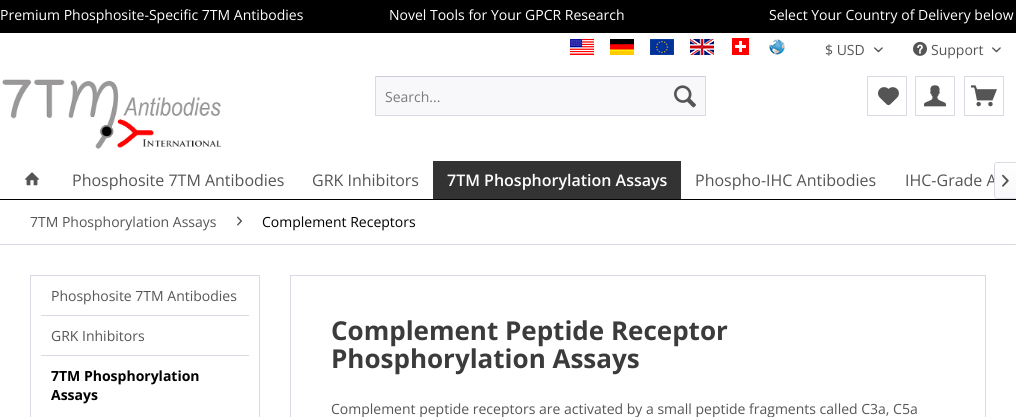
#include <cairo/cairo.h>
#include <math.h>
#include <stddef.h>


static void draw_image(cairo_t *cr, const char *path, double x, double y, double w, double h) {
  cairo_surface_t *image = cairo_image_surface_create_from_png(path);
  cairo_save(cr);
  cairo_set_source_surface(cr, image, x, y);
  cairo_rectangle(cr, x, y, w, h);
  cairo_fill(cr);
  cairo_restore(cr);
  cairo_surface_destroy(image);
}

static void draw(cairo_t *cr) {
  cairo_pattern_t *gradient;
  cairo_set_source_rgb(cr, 1, 1, 1);
  cairo_paint(cr);
  cairo_set_source_rgb(cr, 0, 0, 0);
  cairo_rectangle(cr, 0, 0, 1016, 33);
  cairo_fill(cr);
  draw_image(cr, "images/1.png", 570, 39, 24, 16);
  draw_image(cr, "images/2.png", 610, 39, 24, 16);
  draw_image(cr, "images/3.png", 650, 39, 24, 16);
  draw_image(cr, "images/4.png", 690, 39, 24, 16);
  draw_image(cr, "images/5.png", 732, 38, 17, 17);
  draw_image(cr, "images/6.png", 769, 39, 16, 16);
  draw_image(cr, "images/7.png", 874, 47, 9, 6);
  draw_image(cr, "images/8.png", 913, 41, 14, 15);
  draw_image(cr, "images/7.png", 992, 47, 9, 6);
  draw_image(cr, "images/9.png", 2, 79, 220, 70);
  cairo_set_source_rgb(cr, 248 / 255.0, 248 / 255.0, 250 / 255.0);
  cairo_rectangle(cr, 376, 77, 329, 38);
  cairo_fill(cr);
  cairo_set_source_rgb(cr, 203 / 255.0, 203 / 255.0, 219 / 255.0);
  cairo_rectangle(cr, 375, 76, 331, 1);
  cairo_fill(cr);
  cairo_set_source_rgb(cr, 218 / 255.0, 218 / 255.0, 229 / 255.0);
  cairo_rectangle(cr, 705, 76, 1, 40);
  cairo_fill(cr);
  cairo_rectangle(cr, 375, 115, 331, 1);
  cairo_fill(cr);
  cairo_rectangle(cr, 375, 76, 1, 40);
  cairo_fill(cr);
  draw_image(cr, "images/10.png", 674, 85, 22, 23);
  cairo_rectangle(cr, 867.5, 76.5, 39, 39);
  cairo_set_line_width(cr, 1);
  cairo_stroke(cr);
  draw_image(cr, "images/11.png", 878, 87, 21, 19);
  cairo_rectangle(cr, 915.5, 76.5, 39, 39);
  cairo_stroke(cr);
  draw_image(cr, "images/12.png", 924, 85, 22, 22);
  cairo_rectangle(cr, 964.5, 76.5, 39, 39);
  cairo_stroke(cr);
  draw_image(cr, "images/13.png", 971, 85, 26, 22);
  cairo_set_source_rgb(cr, 0, 0, 0);
  cairo_rectangle(cr, 0, 199, 1016, 1);
  cairo_fill(cr);
  draw_image(cr, "images/14.png", 24, 172, 16, 14);
  cairo_set_source_rgb(cr, 51 / 255.0, 51 / 255.0, 51 / 255.0);
  cairo_rectangle(cr, 433, 161, 248, 38);
  cairo_fill(cr);
  cairo_set_source_rgb(cr, 218 / 255.0, 218 / 255.0, 229 / 255.0);
  cairo_rectangle(cr, 0, 244, 1016, 1);
  cairo_fill(cr);
  draw_image(cr, "images/16.png", 237, 216, 5, 10);
  cairo_rectangle(cr, 30.5, 275.5, 229, 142);
  cairo_stroke(cr);
  cairo_rectangle(cr, 41, 315, 208, 1);
  cairo_fill(cr);
  cairo_rectangle(cr, 41, 355, 208, 1);
  cairo_fill(cr);
  cairo_rectangle(cr, 290.5, 275.5, 695, 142);
  cairo_stroke(cr);
  cairo_select_font_face(cr, "Open Sans", CAIRO_FONT_SLANT_NORMAL, CAIRO_FONT_WEIGHT_NORMAL);
  cairo_set_font_size(cr, 14);
  cairo_set_source_rgb(cr, 1, 1, 1);
  cairo_move_to(cr, 0, 20);
  cairo_show_text(cr, "Premium Phosphosite-Specific 7TM Antibodies");
  cairo_move_to(cr, 389, 20);
  cairo_show_text(cr, "Novel Tools for Your GPCR Research");
  cairo_move_to(cr, 769, 20);
  cairo_show_text(cr, "Select Your Country of Delivery below");
  cairo_set_source_rgb(cr, 85 / 255.0, 85 / 255.0, 85 / 255.0);
  cairo_move_to(cr, 825, 55);
  cairo_show_text(cr, "$ USD");
  cairo_move_to(cr, 931, 55);
  cairo_show_text(cr, "Support");
  cairo_set_source_rgb(cr, 123 / 255.0, 123 / 255.0, 123 / 255.0);
  cairo_move_to(cr, 385, 102);
  cairo_show_text(cr, "Search...");
  cairo_set_font_size(cr, 16);
  cairo_set_source_rgb(cr, 85 / 255.0, 85 / 255.0, 85 / 255.0);
  cairo_move_to(cr, 72, 186);
  cairo_show_text(cr, "Phosphosite 7TM Antibodies");
  cairo_move_to(cr, 312, 186);
  cairo_show_text(cr, "GRK Inhibitors");
  cairo_select_font_face(cr, "Open Sans SemiBold", CAIRO_FONT_SLANT_NORMAL, CAIRO_FONT_WEIGHT_NORMAL);
  cairo_set_source_rgb(cr, 1, 1, 1);
  cairo_move_to(cr, 447, 186);
  cairo_show_text(cr, "7TM Phosphorylation Assays");
  cairo_select_font_face(cr, "Open Sans", CAIRO_FONT_SLANT_NORMAL, CAIRO_FONT_WEIGHT_NORMAL);
  cairo_set_source_rgb(cr, 85 / 255.0, 85 / 255.0, 85 / 255.0);
  cairo_move_to(cr, 695, 186);
  cairo_show_text(cr, "Phospho-IHC Antibodies");
  cairo_move_to(cr, 905, 186);
  cairo_show_text(cr, "IHC-Grade A");
  gradient = cairo_pattern_create_linear(1006, 163, 1006, 198);
  cairo_pattern_add_color_stop_rgba(gradient, 0, 1, 1, 1, 1);
  cairo_pattern_add_color_stop_rgba(gradient, 1, 248 / 255.0, 248 / 255.0, 250 / 255.0, 1);
  cairo_set_source(cr, gradient);
  cairo_pattern_destroy(gradient);
  cairo_new_path(cr);
  cairo_move_to(cr, 997, 163);
  cairo_line_to(cr, 1016, 163);
  cairo_line_to(cr, 1016, 198);
  cairo_line_to(cr, 997, 198);
  cairo_curve_to(cr, 996, 198, 995, 197, 995, 196);
  cairo_line_to(cr, 995, 165);
  cairo_curve_to(cr, 995, 164, 996, 163, 997, 163);
  cairo_close_path(cr);
  cairo_fill(cr);
  cairo_set_source_rgb(cr, 218 / 255.0, 218 / 255.0, 229 / 255.0);
  cairo_set_fill_rule(cr, CAIRO_FILL_RULE_EVEN_ODD);
  cairo_new_path(cr);
  cairo_move_to(cr, 997, 162);
  cairo_line_to(cr, 1016, 162);
  cairo_line_to(cr, 1016, 199);
  cairo_line_to(cr, 997, 199);
  cairo_curve_to(cr, 995.5, 199, 994, 197.5, 994, 196);
  cairo_line_to(cr, 994, 165);
  cairo_curve_to(cr, 994, 163.5, 995.5, 162, 997, 162);
  cairo_close_path(cr);
  cairo_move_to(cr, 997, 163);
  cairo_line_to(cr, 1016, 163);
  cairo_line_to(cr, 1016, 198);
  cairo_line_to(cr, 997, 198);
  cairo_curve_to(cr, 996, 198, 995, 197, 995, 196);
  cairo_line_to(cr, 995, 165);
  cairo_curve_to(cr, 995, 164, 996, 163, 997, 163);
  cairo_close_path(cr);
  cairo_fill(cr);
  draw_image(cr, "images/15.png", 1002, 174, 7, 13);
  cairo_set_font_size(cr, 14);
  cairo_set_source_rgb(cr, 85 / 255.0, 85 / 255.0, 85 / 255.0);
  cairo_move_to(cr, 30, 227);
  cairo_show_text(cr, "7TM Phosphorylation Assays");
  cairo_set_source_rgb(cr, 0, 0, 0);
  cairo_move_to(cr, 262, 227);
  cairo_show_text(cr, "Complement Receptors");
  cairo_set_source_rgb(cr, 85 / 255.0, 85 / 255.0, 85 / 255.0);
  cairo_move_to(cr, 51, 301);
  cairo_show_text(cr, "Phosphosite 7TM Antibodies");
  cairo_move_to(cr, 51, 341);
  cairo_show_text(cr, "GRK Inhibitors");
  cairo_select_font_face(cr, "Open Sans", CAIRO_FONT_SLANT_NORMAL, CAIRO_FONT_WEIGHT_BOLD);
  cairo_set_source_rgb(cr, 0, 0, 0);
  cairo_move_to(cr, 51, 381);
  cairo_show_text(cr, "7TM Phosphorylation");
  cairo_move_to(cr, 51, 400);
  cairo_show_text(cr, "Assays");
  cairo_set_font_size(cr, 26);
  cairo_set_source_rgb(cr, 59 / 255.0, 59 / 255.0, 59 / 255.0);
  cairo_move_to(cr, 331, 340);
  cairo_show_text(cr, "Complement Peptide Receptor");
  cairo_move_to(cr, 331, 368);
  cairo_show_text(cr, "Phosphorylation Assays");
  cairo_select_font_face(cr, "Open Sans", CAIRO_FONT_SLANT_NORMAL, CAIRO_FONT_WEIGHT_NORMAL);
  cairo_set_font_size(cr, 14);
  cairo_set_source_rgb(cr, 85 / 255.0, 85 / 255.0, 85 / 255.0);
  cairo_move_to(cr, 331, 414);
  cairo_show_text(cr, "Complement peptide receptors are activated by a small peptide fragments called C3a, C5a");
}

int main(void) {
  cairo_surface_t *surface = cairo_image_surface_create(CAIRO_FORMAT_RGB24, 1016, 417);
  cairo_t *cr = cairo_create(surface);
  cairo_font_options_t *options = cairo_font_options_create();
  cairo_font_options_set_hint_metrics(options, CAIRO_HINT_METRICS_OFF);
  cairo_font_options_set_hint_style(options, CAIRO_HINT_STYLE_NONE);
  cairo_set_font_options(cr, options);
  cairo_set_miter_limit(cr, 4);
  draw(cr);
  cairo_surface_write_to_png(surface, "out.png");
  cairo_font_options_destroy(options);
  cairo_destroy(cr);
  cairo_surface_destroy(surface);
  return 0;
}
